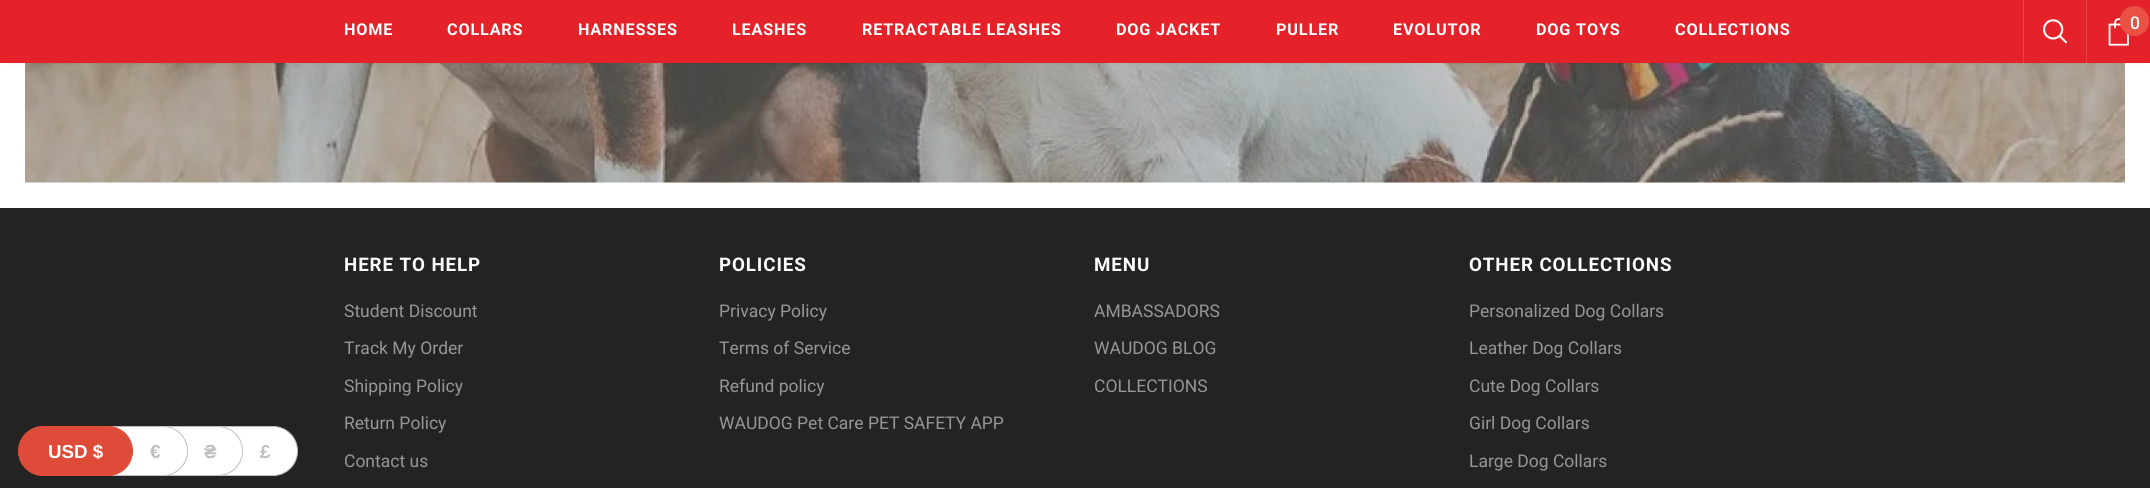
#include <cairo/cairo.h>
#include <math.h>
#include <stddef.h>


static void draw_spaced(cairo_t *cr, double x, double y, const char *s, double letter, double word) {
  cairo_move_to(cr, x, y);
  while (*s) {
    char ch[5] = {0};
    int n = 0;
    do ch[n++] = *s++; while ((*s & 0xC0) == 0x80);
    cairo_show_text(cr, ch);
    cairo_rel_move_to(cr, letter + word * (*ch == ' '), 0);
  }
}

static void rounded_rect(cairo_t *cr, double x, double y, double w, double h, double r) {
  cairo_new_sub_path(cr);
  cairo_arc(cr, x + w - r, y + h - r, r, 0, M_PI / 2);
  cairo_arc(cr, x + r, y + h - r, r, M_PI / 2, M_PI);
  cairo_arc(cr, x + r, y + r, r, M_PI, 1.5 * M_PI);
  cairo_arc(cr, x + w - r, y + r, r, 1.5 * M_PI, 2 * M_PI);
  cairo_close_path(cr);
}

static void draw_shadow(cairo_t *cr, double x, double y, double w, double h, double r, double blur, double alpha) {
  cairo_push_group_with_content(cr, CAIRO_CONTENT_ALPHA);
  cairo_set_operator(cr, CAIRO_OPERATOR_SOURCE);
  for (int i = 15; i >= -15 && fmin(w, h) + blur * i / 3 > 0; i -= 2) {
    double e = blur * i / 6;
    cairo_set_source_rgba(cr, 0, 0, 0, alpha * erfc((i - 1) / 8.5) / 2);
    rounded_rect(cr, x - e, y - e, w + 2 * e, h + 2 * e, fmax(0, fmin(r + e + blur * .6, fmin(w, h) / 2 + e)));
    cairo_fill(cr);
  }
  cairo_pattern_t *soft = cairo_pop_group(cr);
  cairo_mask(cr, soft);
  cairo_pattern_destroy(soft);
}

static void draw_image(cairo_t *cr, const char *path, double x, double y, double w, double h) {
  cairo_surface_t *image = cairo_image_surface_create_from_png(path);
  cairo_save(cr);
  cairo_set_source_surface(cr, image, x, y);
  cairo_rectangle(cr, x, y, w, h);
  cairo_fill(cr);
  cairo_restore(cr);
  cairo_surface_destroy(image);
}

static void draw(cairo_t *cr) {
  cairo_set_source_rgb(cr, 1, 1, 1);
  cairo_paint(cr);
  draw_image(cr, "images/3.png", 25, 63, 2100, 120);
  cairo_set_source_rgb(cr, 0, 0, 0);
  draw_shadow(cr, 4, 8, 2142, 55, 0, 2, 0.1);
  cairo_set_source_rgb(cr, 229 / 255.0, 34 / 255.0, 41 / 255.0);
  cairo_rectangle(cr, 0, 0, 2150, 63);
  cairo_fill(cr);
  cairo_set_source_rgb(cr, 233 / 255.0, 67 / 255.0, 73 / 255.0);
  cairo_rectangle(cr, 2023, 0, 1, 63);
  cairo_fill(cr);
  draw_image(cr, "images/1.png", 2043, 19, 24, 25);
  cairo_rectangle(cr, 2086, 0, 1, 63);
  cairo_fill(cr);
  draw_image(cr, "images/2.png", 2108, 18, 21, 28);
  cairo_set_source_rgb(cr, 233 / 255.0, 81 / 255.0, 68 / 255.0);
  rounded_rect(cr, 2120, 6, 29, 30, 14.5);
  cairo_fill(cr);
  cairo_set_source_rgb(cr, 35 / 255.0, 35 / 255.0, 35 / 255.0);
  cairo_rectangle(cr, 0, 208, 2150, 280);
  cairo_fill(cr);
  cairo_set_source_rgb(cr, 1, 1, 1);
  rounded_rect(cr, 185.5, 426.5, 112, 49, 24.5);
  cairo_fill_preserve(cr);
  cairo_set_source_rgb(cr, 191 / 255.0, 191 / 255.0, 191 / 255.0);
  cairo_set_line_width(cr, 1);
  cairo_stroke(cr);
  cairo_set_source_rgb(cr, 1, 1, 1);
  rounded_rect(cr, 130.5, 426.5, 112, 49, 24.5);
  cairo_fill_preserve(cr);
  cairo_set_source_rgb(cr, 191 / 255.0, 191 / 255.0, 191 / 255.0);
  cairo_stroke(cr);
  cairo_set_source_rgb(cr, 1, 1, 1);
  rounded_rect(cr, 75.5, 426.5, 112, 49, 24.5);
  cairo_fill_preserve(cr);
  cairo_set_source_rgb(cr, 191 / 255.0, 191 / 255.0, 191 / 255.0);
  cairo_stroke(cr);
  cairo_set_source_rgb(cr, 222 / 255.0, 76 / 255.0, 57 / 255.0);
  rounded_rect(cr, 18.5, 426.5, 114, 49, 24.5);
  cairo_fill_preserve(cr);
  cairo_stroke(cr);
  cairo_select_font_face(cr, "Roboto", CAIRO_FONT_SLANT_NORMAL, CAIRO_FONT_WEIGHT_BOLD);
  cairo_set_font_size(cr, 16.25);
  cairo_set_source_rgb(cr, 1, 1, 1);
  draw_spaced(cr, 344, 35, "HOME", 0.8, 0);
  draw_spaced(cr, 447, 35, "COLLARS", 0.8, 0);
  draw_spaced(cr, 578, 35, "HARNESSES", 0.8, 0);
  draw_spaced(cr, 732, 35, "LEASHES", 0.8, 0);
  draw_spaced(cr, 862, 35, "RETRACTABLE LEASHES", 0.8, 0);
  draw_spaced(cr, 1116, 35, "DOG JACKET", 0.8, 0);
  draw_spaced(cr, 1276, 35, "PULLER", 0.8, 0);
  draw_spaced(cr, 1393, 35, "EVOLUTOR", 0.8, 0);
  draw_spaced(cr, 1536, 35, "DOG TOYS", 0.8, 0);
  draw_spaced(cr, 1675, 35, "COLLECTIONS", 0.8, 0);
  cairo_select_font_face(cr, "Roboto Medium", CAIRO_FONT_SLANT_NORMAL, CAIRO_FONT_WEIGHT_NORMAL);
  cairo_set_font_size(cr, 17.5);
  cairo_move_to(cr, 2130, 29);
  cairo_show_text(cr, "0");
  cairo_select_font_face(cr, "Liberation Sans", CAIRO_FONT_SLANT_NORMAL, CAIRO_FONT_WEIGHT_BOLD);
  cairo_set_font_size(cr, 18.75);
  cairo_move_to(cr, 48, 458);
  cairo_show_text(cr, "USD $");
  cairo_set_source_rgb(cr, 191 / 255.0, 191 / 255.0, 191 / 255.0);
  cairo_move_to(cr, 150, 458);
  cairo_show_text(cr, "€");
  cairo_move_to(cr, 204, 458);
  cairo_show_text(cr, "₴");
  cairo_move_to(cr, 260, 458);
  cairo_show_text(cr, "£");
  cairo_select_font_face(cr, "Roboto", CAIRO_FONT_SLANT_NORMAL, CAIRO_FONT_WEIGHT_BOLD);
  cairo_set_source_rgb(cr, 1, 1, 1);
  draw_spaced(cr, 344, 271, "HERE TO HELP", 0.9, 0);
  cairo_select_font_face(cr, "Roboto", CAIRO_FONT_SLANT_NORMAL, CAIRO_FONT_WEIGHT_NORMAL);
  cairo_set_font_size(cr, 17.5);
  cairo_set_source_rgb(cr, 150 / 255.0, 150 / 255.0, 150 / 255.0);
  cairo_move_to(cr, 344, 317);
  cairo_show_text(cr, "Student Discount");
  cairo_move_to(cr, 344, 354);
  cairo_show_text(cr, "Track My Order");
  cairo_move_to(cr, 344, 392);
  cairo_show_text(cr, "Shipping Policy");
  cairo_move_to(cr, 344, 429);
  cairo_show_text(cr, "Return Policy");
  cairo_move_to(cr, 344, 467);
  cairo_show_text(cr, "Contact us");
  cairo_select_font_face(cr, "Roboto", CAIRO_FONT_SLANT_NORMAL, CAIRO_FONT_WEIGHT_BOLD);
  cairo_set_font_size(cr, 18.75);
  cairo_set_source_rgb(cr, 1, 1, 1);
  draw_spaced(cr, 719, 271, "POLICIES", 0.9, 0);
  cairo_select_font_face(cr, "Roboto", CAIRO_FONT_SLANT_NORMAL, CAIRO_FONT_WEIGHT_NORMAL);
  cairo_set_font_size(cr, 17.5);
  cairo_set_source_rgb(cr, 150 / 255.0, 150 / 255.0, 150 / 255.0);
  cairo_move_to(cr, 719, 317);
  cairo_show_text(cr, "Privacy Policy");
  cairo_move_to(cr, 719, 354);
  cairo_show_text(cr, "Terms of Service");
  cairo_move_to(cr, 719, 392);
  cairo_show_text(cr, "Refund policy");
  cairo_move_to(cr, 719, 429);
  cairo_show_text(cr, "WAUDOG Pet Care PET SAFETY APP");
  cairo_select_font_face(cr, "Roboto", CAIRO_FONT_SLANT_NORMAL, CAIRO_FONT_WEIGHT_BOLD);
  cairo_set_font_size(cr, 18.75);
  cairo_set_source_rgb(cr, 1, 1, 1);
  draw_spaced(cr, 1094, 271, "MENU", 0.9, 0);
  cairo_select_font_face(cr, "Roboto", CAIRO_FONT_SLANT_NORMAL, CAIRO_FONT_WEIGHT_NORMAL);
  cairo_set_font_size(cr, 17.5);
  cairo_set_source_rgb(cr, 150 / 255.0, 150 / 255.0, 150 / 255.0);
  cairo_move_to(cr, 1094, 317);
  cairo_show_text(cr, "AMBASSADORS");
  cairo_move_to(cr, 1094, 354);
  cairo_show_text(cr, "WAUDOG BLOG");
  cairo_move_to(cr, 1094, 392);
  cairo_show_text(cr, "COLLECTIONS");
  cairo_select_font_face(cr, "Roboto", CAIRO_FONT_SLANT_NORMAL, CAIRO_FONT_WEIGHT_BOLD);
  cairo_set_font_size(cr, 18.75);
  cairo_set_source_rgb(cr, 1, 1, 1);
  draw_spaced(cr, 1469, 271, "OTHER COLLECTIONS", 0.9, 0);
  cairo_select_font_face(cr, "Roboto", CAIRO_FONT_SLANT_NORMAL, CAIRO_FONT_WEIGHT_NORMAL);
  cairo_set_font_size(cr, 17.5);
  cairo_set_source_rgb(cr, 150 / 255.0, 150 / 255.0, 150 / 255.0);
  cairo_move_to(cr, 1469, 317);
  cairo_show_text(cr, "Personalized Dog Collars");
  cairo_move_to(cr, 1469, 354);
  cairo_show_text(cr, "Leather Dog Collars");
  cairo_move_to(cr, 1469, 392);
  cairo_show_text(cr, "Cute Dog Collars");
  cairo_move_to(cr, 1469, 429);
  cairo_show_text(cr, "Girl Dog Collars");
  cairo_move_to(cr, 1469, 467);
  cairo_show_text(cr, "Large Dog Collars");
}

int main(void) {
  cairo_surface_t *surface = cairo_image_surface_create(CAIRO_FORMAT_RGB24, 2150, 488);
  cairo_t *cr = cairo_create(surface);
  cairo_font_options_t *options = cairo_font_options_create();
  cairo_font_options_set_hint_metrics(options, CAIRO_HINT_METRICS_OFF);
  cairo_font_options_set_hint_style(options, CAIRO_HINT_STYLE_NONE);
  cairo_set_font_options(cr, options);
  cairo_set_miter_limit(cr, 4);
  draw(cr);
  cairo_surface_write_to_png(surface, "out.png");
  cairo_font_options_destroy(options);
  cairo_destroy(cr);
  cairo_surface_destroy(surface);
  return 0;
}
